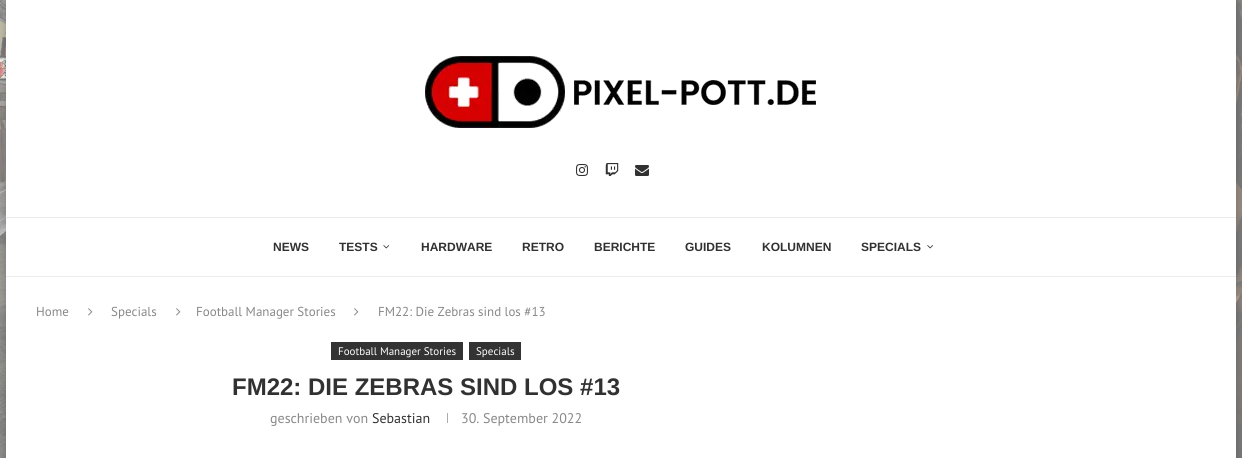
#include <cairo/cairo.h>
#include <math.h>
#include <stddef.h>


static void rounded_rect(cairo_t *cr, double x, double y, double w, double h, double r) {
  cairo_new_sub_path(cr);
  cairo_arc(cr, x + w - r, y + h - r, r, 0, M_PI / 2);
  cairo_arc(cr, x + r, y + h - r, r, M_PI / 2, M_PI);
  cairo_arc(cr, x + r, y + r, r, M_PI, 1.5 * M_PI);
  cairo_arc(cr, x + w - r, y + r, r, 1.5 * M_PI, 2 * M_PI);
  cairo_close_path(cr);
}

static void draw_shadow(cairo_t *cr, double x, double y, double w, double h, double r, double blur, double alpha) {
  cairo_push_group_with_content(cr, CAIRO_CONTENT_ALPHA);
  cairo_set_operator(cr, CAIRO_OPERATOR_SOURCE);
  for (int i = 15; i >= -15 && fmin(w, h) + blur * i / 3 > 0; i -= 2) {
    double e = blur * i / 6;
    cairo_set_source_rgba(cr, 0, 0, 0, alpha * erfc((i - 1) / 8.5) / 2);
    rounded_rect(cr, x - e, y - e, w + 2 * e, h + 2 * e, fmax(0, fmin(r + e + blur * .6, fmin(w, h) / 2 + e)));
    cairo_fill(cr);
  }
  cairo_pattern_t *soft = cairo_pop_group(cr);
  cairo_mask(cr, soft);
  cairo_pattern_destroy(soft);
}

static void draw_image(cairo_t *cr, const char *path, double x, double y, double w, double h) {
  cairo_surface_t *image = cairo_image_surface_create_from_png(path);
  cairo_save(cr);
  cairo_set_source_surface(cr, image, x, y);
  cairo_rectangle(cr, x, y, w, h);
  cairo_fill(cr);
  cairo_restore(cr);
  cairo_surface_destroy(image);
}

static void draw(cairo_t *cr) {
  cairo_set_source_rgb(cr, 245 / 255.0, 245 / 255.0, 245 / 255.0);
  cairo_paint(cr);
  draw_image(cr, "images/1.png", 0, 0, 1242, 458);
  cairo_set_source_rgb(cr, 0, 0, 0);
  draw_shadow(cr, 6, 5, 1230, 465, 0, 4, 0.2);
  cairo_set_source_rgb(cr, 1, 1, 1);
  cairo_rectangle(cr, 6, 0, 1230, 458);
  cairo_fill(cr);
  draw_image(cr, "images/2.png", 425, 56, 391, 72);
  draw_image(cr, "images/3.png", 576, 164, 12, 12);
  draw_image(cr, "images/4.png", 605, 163, 14, 13);
  draw_image(cr, "images/5.png", 635, 165, 14, 11);
  cairo_set_source_rgb(cr, 236 / 255.0, 236 / 255.0, 236 / 255.0);
  cairo_rectangle(cr, 6, 217, 1230, 1);
  cairo_fill(cr);
  cairo_rectangle(cr, 6, 276, 1230, 1);
  cairo_fill(cr);
  draw_image(cr, "images/6.png", 383, 245, 7, 4);
  draw_image(cr, "images/7.png", 927, 245, 6, 4);
  draw_image(cr, "images/8.png", 88, 308, 5, 8);
  draw_image(cr, "images/8.png", 176, 308, 5, 8);
  draw_image(cr, "images/8.png", 354, 308, 5, 8);
  cairo_set_source_rgb(cr, 51 / 255.0, 51 / 255.0, 51 / 255.0);
  cairo_rectangle(cr, 331, 342, 132, 18);
  cairo_fill(cr);
  cairo_rectangle(cr, 469, 342, 52, 18);
  cairo_fill(cr);
  cairo_set_source_rgb(cr, 172 / 255.0, 172 / 255.0, 172 / 255.0);
  cairo_rectangle(cr, 447, 413, 1, 10);
  cairo_fill(cr);
  cairo_select_font_face(cr, "Liberation Sans", CAIRO_FONT_SLANT_NORMAL, CAIRO_FONT_WEIGHT_BOLD);
  cairo_set_font_size(cr, 12);
  cairo_set_source_rgb(cr, 49 / 255.0, 49 / 255.0, 49 / 255.0);
  cairo_move_to(cr, 273, 251);
  cairo_show_text(cr, "NEWS");
  cairo_move_to(cr, 339, 251);
  cairo_show_text(cr, "TESTS");
  cairo_move_to(cr, 421, 251);
  cairo_show_text(cr, "HARDWARE");
  cairo_move_to(cr, 522, 251);
  cairo_show_text(cr, "RETRO");
  cairo_move_to(cr, 594, 251);
  cairo_show_text(cr, "BERICHTE");
  cairo_move_to(cr, 685, 251);
  cairo_show_text(cr, "GUIDES");
  cairo_move_to(cr, 762, 251);
  cairo_show_text(cr, "KOLUMNEN");
  cairo_move_to(cr, 861, 251);
  cairo_show_text(cr, "SPECIALS");
  cairo_select_font_face(cr, "PT Sans", CAIRO_FONT_SLANT_NORMAL, CAIRO_FONT_WEIGHT_NORMAL);
  cairo_set_font_size(cr, 13);
  cairo_set_source_rgb(cr, 136 / 255.0, 136 / 255.0, 136 / 255.0);
  cairo_move_to(cr, 36, 316);
  cairo_show_text(cr, "Home");
  cairo_move_to(cr, 111, 316);
  cairo_show_text(cr, "Specials");
  cairo_move_to(cr, 196, 316);
  cairo_show_text(cr, "Football Manager Stories");
  cairo_move_to(cr, 378, 316);
  cairo_show_text(cr, "FM22: Die Zebras sind los #13");
  cairo_set_font_size(cr, 11);
  cairo_set_source_rgb(cr, 1, 1, 1);
  cairo_move_to(cr, 338, 355);
  cairo_show_text(cr, "Football Manager Stories");
  cairo_move_to(cr, 476, 355);
  cairo_show_text(cr, "Specials");
  cairo_select_font_face(cr, "Liberation Sans", CAIRO_FONT_SLANT_NORMAL, CAIRO_FONT_WEIGHT_BOLD);
  cairo_set_font_size(cr, 24);
  cairo_set_source_rgb(cr, 49 / 255.0, 49 / 255.0, 49 / 255.0);
  cairo_move_to(cr, 232, 395);
  cairo_show_text(cr, "FM22: DIE ZEBRAS SIND LOS #13");
  cairo_select_font_face(cr, "PT Sans", CAIRO_FONT_SLANT_NORMAL, CAIRO_FONT_WEIGHT_NORMAL);
  cairo_set_font_size(cr, 14);
  cairo_set_source_rgb(cr, 136 / 255.0, 136 / 255.0, 136 / 255.0);
  cairo_move_to(cr, 270, 423);
  cairo_show_text(cr, "geschrieben von");
  cairo_set_source_rgb(cr, 49 / 255.0, 49 / 255.0, 49 / 255.0);
  cairo_move_to(cr, 372, 423);
  cairo_show_text(cr, "Sebastian");
  cairo_set_source_rgb(cr, 136 / 255.0, 136 / 255.0, 136 / 255.0);
  cairo_move_to(cr, 461, 423);
  cairo_show_text(cr, "30. September 2022");
}

int main(void) {
  cairo_surface_t *surface = cairo_image_surface_create(CAIRO_FORMAT_RGB24, 1242, 458);
  cairo_t *cr = cairo_create(surface);
  cairo_font_options_t *options = cairo_font_options_create();
  cairo_font_options_set_hint_metrics(options, CAIRO_HINT_METRICS_OFF);
  cairo_font_options_set_hint_style(options, CAIRO_HINT_STYLE_NONE);
  cairo_set_font_options(cr, options);
  cairo_set_miter_limit(cr, 4);
  draw(cr);
  cairo_surface_write_to_png(surface, "out.png");
  cairo_font_options_destroy(options);
  cairo_destroy(cr);
  cairo_surface_destroy(surface);
  return 0;
}
